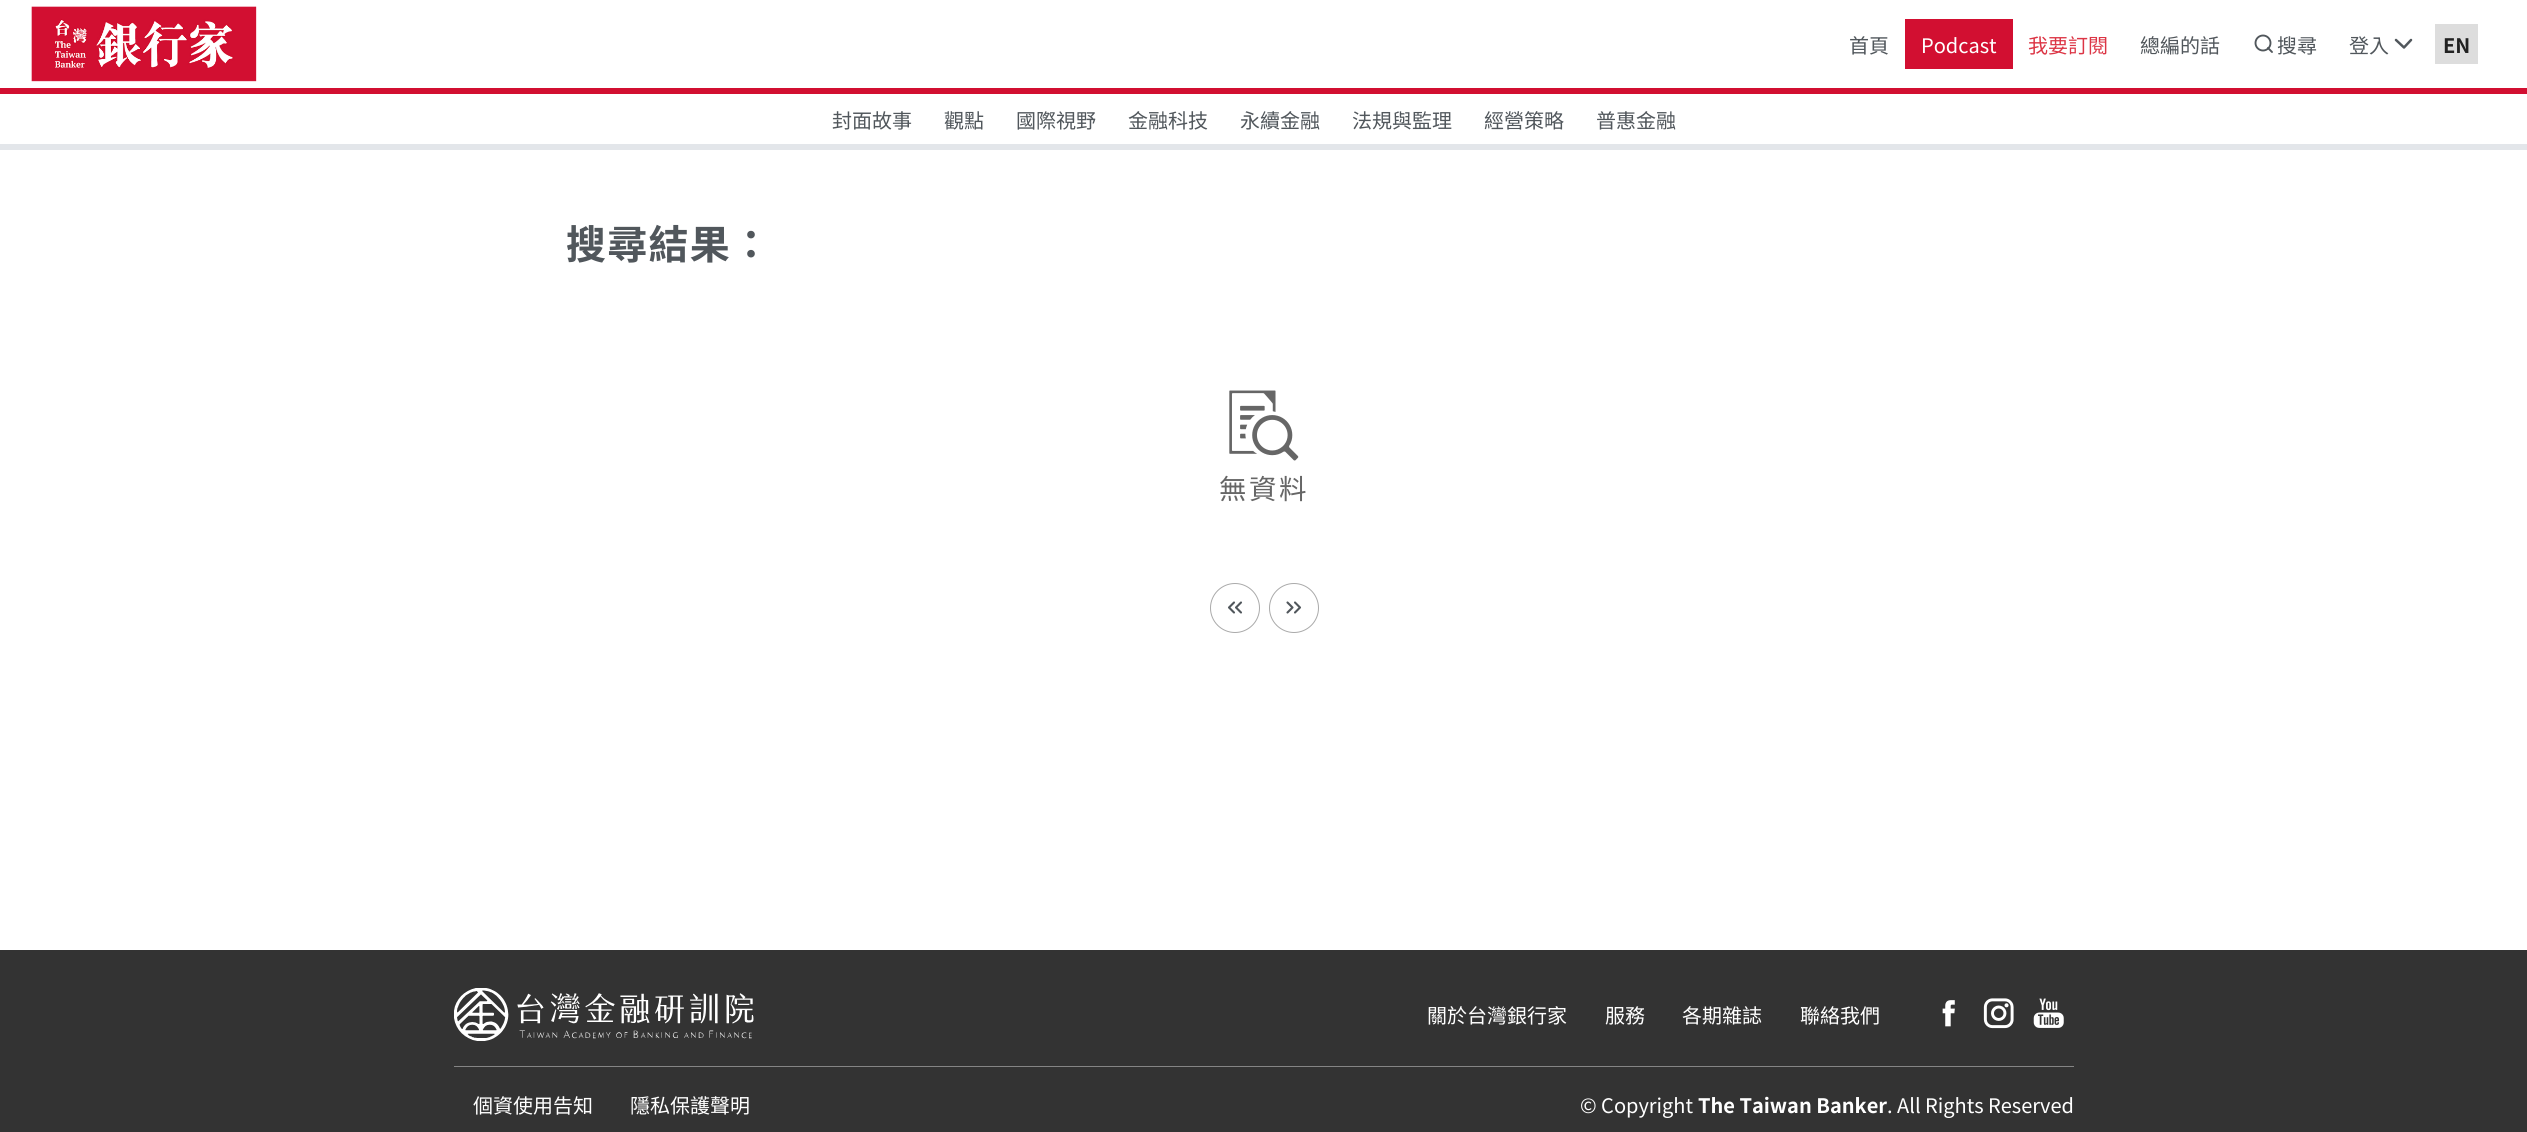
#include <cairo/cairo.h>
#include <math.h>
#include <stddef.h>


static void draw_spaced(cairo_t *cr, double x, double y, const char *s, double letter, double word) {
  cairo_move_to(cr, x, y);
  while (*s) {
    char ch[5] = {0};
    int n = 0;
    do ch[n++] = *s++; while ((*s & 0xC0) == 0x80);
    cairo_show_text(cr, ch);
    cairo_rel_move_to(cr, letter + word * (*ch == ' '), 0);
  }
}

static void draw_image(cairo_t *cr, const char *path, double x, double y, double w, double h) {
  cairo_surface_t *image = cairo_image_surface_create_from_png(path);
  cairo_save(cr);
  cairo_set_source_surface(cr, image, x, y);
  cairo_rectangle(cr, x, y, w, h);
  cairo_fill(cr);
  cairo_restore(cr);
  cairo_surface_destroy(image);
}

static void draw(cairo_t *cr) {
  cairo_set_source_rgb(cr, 1, 1, 1);
  cairo_paint(cr);
  cairo_set_source_rgb(cr, 227 / 255.0, 230 / 255.0, 234 / 255.0);
  cairo_rectangle(cr, 0, 144, 2527, 6);
  cairo_fill(cr);
  cairo_set_source_rgb(cr, 210 / 255.0, 15 / 255.0, 49 / 255.0);
  cairo_rectangle(cr, 0, 88, 2527, 6);
  cairo_fill(cr);
  draw_image(cr, "images/1.png", 31, 6, 226, 76);
  cairo_rectangle(cr, 1905, 19, 108, 50);
  cairo_fill(cr);
  cairo_arc(cr, 2263, 43, 7.5, 0, 2 * M_PI);
  cairo_set_source_rgb(cr, 81 / 255.0, 87 / 255.0, 92 / 255.0);
  cairo_set_line_width(cr, 1.9);
  cairo_stroke(cr);
  cairo_new_path(cr);
  cairo_move_to(cr, 2272, 52);
  cairo_line_to(cr, 2268, 48);
  cairo_set_line_cap(cr, CAIRO_LINE_CAP_ROUND);
  cairo_set_line_join(cr, CAIRO_LINE_JOIN_ROUND);
  cairo_stroke(cr);
  cairo_new_path(cr);
  cairo_move_to(cr, 2396, 40);
  cairo_line_to(cr, 2404, 47.5);
  cairo_line_to(cr, 2411, 40);
  cairo_set_line_width(cr, 2.5);
  cairo_stroke(cr);
  cairo_set_source_rgb(cr, 221 / 255.0, 221 / 255.0, 221 / 255.0);
  cairo_rectangle(cr, 2435, 24, 43, 40);
  cairo_fill(cr);
  draw_image(cr, "images/2.png", 1229, 390, 70, 71);
  cairo_arc(cr, 1235, 608, 24.5, 0, 2 * M_PI);
  cairo_set_source_rgb(cr, 170 / 255.0, 170 / 255.0, 170 / 255.0);
  cairo_set_line_width(cr, 1);
  cairo_set_line_cap(cr, CAIRO_LINE_CAP_BUTT);
  cairo_set_line_join(cr, CAIRO_LINE_JOIN_MITER);
  cairo_stroke(cr);
  cairo_new_path(cr);
  cairo_move_to(cr, 1234, 612.5);
  cairo_line_to(cr, 1229, 607.5);
  cairo_line_to(cr, 1234, 602.5);
  cairo_move_to(cr, 1241, 612.5);
  cairo_line_to(cr, 1236, 607.5);
  cairo_line_to(cr, 1241, 602.5);
  cairo_set_source_rgb(cr, 81 / 255.0, 87 / 255.0, 92 / 255.0);
  cairo_set_line_width(cr, 2.1);
  cairo_set_line_cap(cr, CAIRO_LINE_CAP_ROUND);
  cairo_set_line_join(cr, CAIRO_LINE_JOIN_ROUND);
  cairo_stroke(cr);
  cairo_arc(cr, 1294, 608, 24.5, 0, 2 * M_PI);
  cairo_set_source_rgb(cr, 170 / 255.0, 170 / 255.0, 170 / 255.0);
  cairo_set_line_width(cr, 1);
  cairo_set_line_cap(cr, CAIRO_LINE_CAP_BUTT);
  cairo_set_line_join(cr, CAIRO_LINE_JOIN_MITER);
  cairo_stroke(cr);
  cairo_new_path(cr);
  cairo_move_to(cr, 1295, 612.5);
  cairo_line_to(cr, 1300, 607.5);
  cairo_line_to(cr, 1295, 602.5);
  cairo_move_to(cr, 1287.5, 612.5);
  cairo_line_to(cr, 1292.5, 607.5);
  cairo_line_to(cr, 1287.5, 602.5);
  cairo_set_source_rgb(cr, 81 / 255.0, 87 / 255.0, 92 / 255.0);
  cairo_set_line_width(cr, 2.1);
  cairo_set_line_cap(cr, CAIRO_LINE_CAP_ROUND);
  cairo_set_line_join(cr, CAIRO_LINE_JOIN_ROUND);
  cairo_stroke(cr);
  cairo_set_source_rgb(cr, 51 / 255.0, 51 / 255.0, 51 / 255.0);
  cairo_rectangle(cr, 0, 950, 2527, 182);
  cairo_fill(cr);
  draw_image(cr, "images/3.png", 454, 988, 300, 53);
  draw_image(cr, "images/4.png", 1942, 1000, 13, 27);
  draw_image(cr, "images/5.png", 1983, 998, 31, 31);
  draw_image(cr, "images/6.png", 2033, 998, 31, 30);
  cairo_set_source_rgb(cr, 133 / 255.0, 133 / 255.0, 133 / 255.0);
  cairo_rectangle(cr, 454, 1066, 1620, 1);
  cairo_fill(cr);
  cairo_select_font_face(cr, "Noto Sans TC", CAIRO_FONT_SLANT_NORMAL, CAIRO_FONT_WEIGHT_NORMAL);
  cairo_set_font_size(cr, 20);
  cairo_set_source_rgb(cr, 81 / 255.0, 87 / 255.0, 92 / 255.0);
  cairo_move_to(cr, 1849, 53);
  cairo_show_text(cr, "首頁");
  cairo_set_source_rgb(cr, 1, 1, 1);
  cairo_move_to(cr, 1921, 53);
  cairo_show_text(cr, "Podcast");
  cairo_set_source_rgb(cr, 220 / 255.0, 53 / 255.0, 69 / 255.0);
  cairo_move_to(cr, 2028, 53);
  cairo_show_text(cr, "我要訂閱");
  cairo_set_source_rgb(cr, 81 / 255.0, 87 / 255.0, 92 / 255.0);
  cairo_move_to(cr, 2140, 53);
  cairo_show_text(cr, "總編的話");
  cairo_move_to(cr, 2277, 53);
  cairo_show_text(cr, "搜尋");
  cairo_move_to(cr, 2349, 53);
  cairo_show_text(cr, "登入");
  cairo_select_font_face(cr, "Noto Sans TC", CAIRO_FONT_SLANT_NORMAL, CAIRO_FONT_WEIGHT_BOLD);
  cairo_set_source_rgb(cr, 34 / 255.0, 34 / 255.0, 34 / 255.0);
  cairo_move_to(cr, 2443, 53);
  cairo_show_text(cr, "EN");
  cairo_select_font_face(cr, "Noto Sans TC", CAIRO_FONT_SLANT_NORMAL, CAIRO_FONT_WEIGHT_NORMAL);
  cairo_set_source_rgb(cr, 81 / 255.0, 87 / 255.0, 92 / 255.0);
  cairo_move_to(cr, 832, 128);
  cairo_show_text(cr, "封面故事");
  cairo_move_to(cr, 944, 128);
  cairo_show_text(cr, "觀點");
  cairo_move_to(cr, 1016, 128);
  cairo_show_text(cr, "國際視野");
  cairo_move_to(cr, 1128, 128);
  cairo_show_text(cr, "金融科技");
  cairo_move_to(cr, 1240, 128);
  cairo_show_text(cr, "永續金融");
  cairo_move_to(cr, 1352, 128);
  cairo_show_text(cr, "法規與監理");
  cairo_move_to(cr, 1484, 128);
  cairo_show_text(cr, "經營策略");
  cairo_move_to(cr, 1596, 128);
  cairo_show_text(cr, "普惠金融");
  cairo_select_font_face(cr, "Noto Sans TC", CAIRO_FONT_SLANT_NORMAL, CAIRO_FONT_WEIGHT_BOLD);
  cairo_set_font_size(cr, 40);
  draw_spaced(cr, 566, 259, "搜尋結果：", 1.25, 0);
  cairo_select_font_face(cr, "Noto Sans TC", CAIRO_FONT_SLANT_NORMAL, CAIRO_FONT_WEIGHT_NORMAL);
  cairo_set_font_size(cr, 27.5);
  cairo_set_source_rgb(cr, 102 / 255.0, 102 / 255.0, 102 / 255.0);
  draw_spaced(cr, 1219, 499, "無資料", 2.5, 0);
  cairo_set_font_size(cr, 20);
  cairo_set_source_rgb(cr, 1, 1, 1);
  cairo_move_to(cr, 1427, 1023);
  cairo_show_text(cr, "關於台灣銀行家");
  cairo_move_to(cr, 1605, 1023);
  cairo_show_text(cr, "服務");
  cairo_move_to(cr, 1682, 1023);
  cairo_show_text(cr, "各期雜誌");
  cairo_move_to(cr, 1800, 1023);
  cairo_show_text(cr, "聯絡我們");
  cairo_move_to(cr, 473, 1113);
  cairo_show_text(cr, "個資使用告知");
  cairo_move_to(cr, 630, 1113);
  cairo_show_text(cr, "隱私保護聲明");
  cairo_move_to(cr, 1580, 1113);
  cairo_show_text(cr, "© Copyright");
  cairo_select_font_face(cr, "Noto Sans TC", CAIRO_FONT_SLANT_NORMAL, CAIRO_FONT_WEIGHT_BOLD);
  cairo_move_to(cr, 1698, 1113);
  cairo_show_text(cr, "The Taiwan Banker");
  cairo_select_font_face(cr, "Noto Sans TC", CAIRO_FONT_SLANT_NORMAL, CAIRO_FONT_WEIGHT_NORMAL);
  cairo_move_to(cr, 1887, 1113);
  cairo_show_text(cr, ". All Rights Reserved");
}

int main(void) {
  cairo_surface_t *surface = cairo_image_surface_create(CAIRO_FORMAT_RGB24, 2527, 1132);
  cairo_t *cr = cairo_create(surface);
  cairo_font_options_t *options = cairo_font_options_create();
  cairo_font_options_set_hint_metrics(options, CAIRO_HINT_METRICS_OFF);
  cairo_font_options_set_hint_style(options, CAIRO_HINT_STYLE_NONE);
  cairo_set_font_options(cr, options);
  cairo_set_miter_limit(cr, 4);
  draw(cr);
  cairo_surface_write_to_png(surface, "out.png");
  cairo_font_options_destroy(options);
  cairo_destroy(cr);
  cairo_surface_destroy(surface);
  return 0;
}
